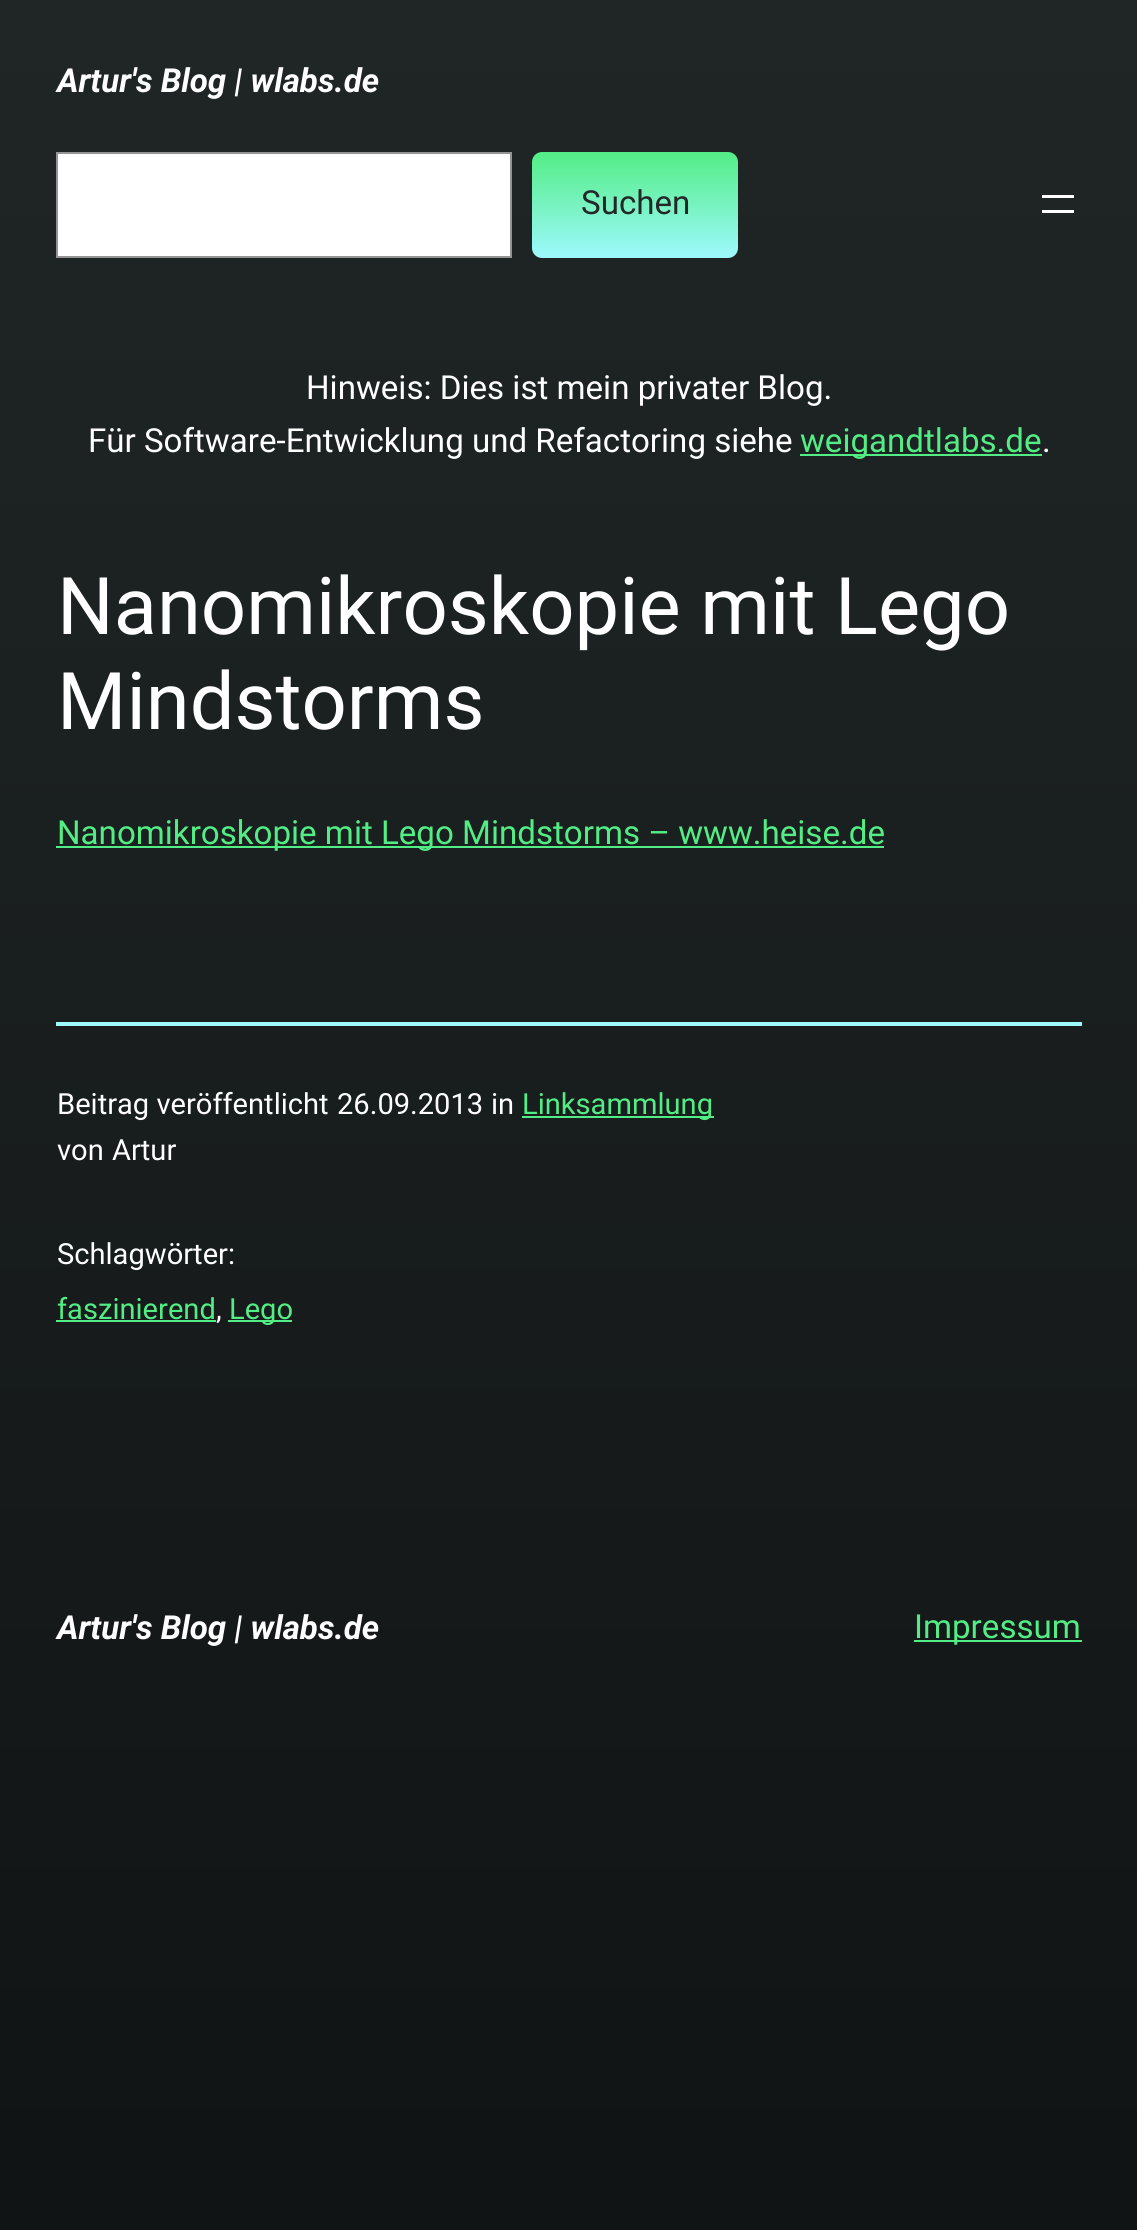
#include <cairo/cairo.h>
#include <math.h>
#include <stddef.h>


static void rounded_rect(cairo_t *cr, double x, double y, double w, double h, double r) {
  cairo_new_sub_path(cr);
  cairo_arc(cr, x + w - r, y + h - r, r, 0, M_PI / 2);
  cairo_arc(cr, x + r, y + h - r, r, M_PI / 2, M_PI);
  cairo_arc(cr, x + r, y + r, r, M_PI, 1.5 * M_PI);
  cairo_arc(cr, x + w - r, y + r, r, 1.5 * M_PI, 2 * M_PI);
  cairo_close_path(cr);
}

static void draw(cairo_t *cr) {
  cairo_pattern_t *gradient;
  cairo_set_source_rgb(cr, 1, 1, 1);
  cairo_paint(cr);
  gradient = cairo_pattern_create_linear(569, 0, 569, 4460);
  cairo_pattern_add_color_stop_rgba(gradient, 0, 32 / 255.0, 38 / 255.0, 38 / 255.0, 1);
  cairo_pattern_add_color_stop_rgba(gradient, 1, 1 / 255.0, 1 / 255.0, 1 / 255.0, 1);
  cairo_set_source(cr, gradient);
  cairo_pattern_destroy(gradient);
  cairo_rectangle(cr, 0, 0, 1137, 2230);
  cairo_fill(cr);
  cairo_set_source_rgb(cr, 1, 1, 1);
  cairo_rectangle(cr, 57, 153, 454, 104);
  cairo_fill_preserve(cr);
  cairo_set_source_rgb(cr, 148 / 255.0, 148 / 255.0, 148 / 255.0);
  cairo_stroke(cr);
  gradient = cairo_pattern_create_linear(635, 152, 635, 258);
  cairo_pattern_add_color_stop_rgba(gradient, 0, 83 / 255.0, 237 / 255.0, 133 / 255.0, 1);
  cairo_pattern_add_color_stop_rgba(gradient, 1, 158 / 255.0, 249 / 255.0, 253 / 255.0, 1);
  cairo_set_source(cr, gradient);
  cairo_pattern_destroy(gradient);
  rounded_rect(cr, 532, 152, 206, 106, 10);
  cairo_fill(cr);
  cairo_set_source_rgb(cr, 1, 1, 1);
  cairo_rectangle(cr, 1042, 195, 32, 3);
  cairo_fill(cr);
  cairo_rectangle(cr, 1042, 210, 32, 3);
  cairo_fill(cr);
  cairo_set_source_rgb(cr, 83 / 255.0, 237 / 255.0, 133 / 255.0);
  cairo_rectangle(cr, 800, 454, 242, 2);
  cairo_fill(cr);
  cairo_rectangle(cr, 56, 846, 828, 2);
  cairo_fill(cr);
  cairo_set_source_rgb(cr, 158 / 255.0, 249 / 255.0, 253 / 255.0);
  cairo_rectangle(cr, 56, 1022, 1026, 4);
  cairo_fill(cr);
  cairo_set_source_rgb(cr, 83 / 255.0, 237 / 255.0, 133 / 255.0);
  cairo_rectangle(cr, 522, 1116, 192, 2);
  cairo_fill(cr);
  cairo_rectangle(cr, 56, 1320, 160, 2);
  cairo_fill(cr);
  cairo_rectangle(cr, 228, 1320, 64, 2);
  cairo_fill(cr);
  cairo_rectangle(cr, 914, 1640, 168, 2);
  cairo_fill(cr);
  cairo_select_font_face(cr, "Roboto", CAIRO_FONT_SLANT_ITALIC, CAIRO_FONT_WEIGHT_BOLD);
  cairo_set_font_size(cr, 33.1);
  cairo_set_source_rgb(cr, 1, 1, 1);
  cairo_move_to(cr, 57, 92);
  cairo_show_text(cr, "Artur's Blog | wlabs.de");
  cairo_select_font_face(cr, "Roboto", CAIRO_FONT_SLANT_NORMAL, CAIRO_FONT_WEIGHT_NORMAL);
  cairo_set_source_rgb(cr, 34 / 255.0, 40 / 255.0, 40 / 255.0);
  cairo_move_to(cr, 581, 214);
  cairo_show_text(cr, "Suchen");
  cairo_set_source_rgb(cr, 1, 1, 1);
  cairo_move_to(cr, 306, 399);
  cairo_show_text(cr, "Hinweis: Dies ist mein privater Blog.");
  cairo_move_to(cr, 88, 452);
  cairo_show_text(cr, "Für Software-Entwicklung und Refactoring siehe");
  cairo_set_source_rgb(cr, 83 / 255.0, 237 / 255.0, 133 / 255.0);
  cairo_move_to(cr, 800, 452);
  cairo_show_text(cr, "weigandtlabs.de");
  cairo_set_source_rgb(cr, 1, 1, 1);
  cairo_move_to(cr, 1042, 452);
  cairo_show_text(cr, ".");
  cairo_set_font_size(cr, 79.5);
  cairo_move_to(cr, 57, 634);
  cairo_show_text(cr, "Nanomikroskopie mit Lego");
  cairo_move_to(cr, 57, 729);
  cairo_show_text(cr, "Mindstorms");
  cairo_set_font_size(cr, 33.1);
  cairo_set_source_rgb(cr, 83 / 255.0, 237 / 255.0, 133 / 255.0);
  cairo_move_to(cr, 57, 844);
  cairo_show_text(cr, "Nanomikroskopie mit Lego Mindstorms – www.heise.de");
  cairo_set_font_size(cr, 29.1);
  cairo_set_source_rgb(cr, 1, 1, 1);
  cairo_move_to(cr, 57, 1114);
  cairo_show_text(cr, "Beitrag veröffentlicht");
  cairo_move_to(cr, 337, 1114);
  cairo_show_text(cr, "26.09.2013");
  cairo_move_to(cr, 491, 1114);
  cairo_show_text(cr, "in");
  cairo_set_source_rgb(cr, 83 / 255.0, 237 / 255.0, 133 / 255.0);
  cairo_move_to(cr, 522, 1114);
  cairo_show_text(cr, "Linksammlung");
  cairo_set_source_rgb(cr, 1, 1, 1);
  cairo_move_to(cr, 57, 1160);
  cairo_show_text(cr, "von");
  cairo_move_to(cr, 112, 1160);
  cairo_show_text(cr, "Artur");
  cairo_move_to(cr, 57, 1264);
  cairo_show_text(cr, "Schlagwörter:");
  cairo_set_source_rgb(cr, 83 / 255.0, 237 / 255.0, 133 / 255.0);
  cairo_move_to(cr, 57, 1319);
  cairo_show_text(cr, "faszinierend");
  cairo_set_source_rgb(cr, 1, 1, 1);
  cairo_move_to(cr, 216, 1319);
  cairo_show_text(cr, ",");
  cairo_set_source_rgb(cr, 83 / 255.0, 237 / 255.0, 133 / 255.0);
  cairo_move_to(cr, 229, 1319);
  cairo_show_text(cr, "Lego");
  cairo_select_font_face(cr, "Roboto", CAIRO_FONT_SLANT_ITALIC, CAIRO_FONT_WEIGHT_BOLD);
  cairo_set_font_size(cr, 33.1);
  cairo_set_source_rgb(cr, 1, 1, 1);
  cairo_move_to(cr, 57, 1639);
  cairo_show_text(cr, "Artur's Blog | wlabs.de");
  cairo_select_font_face(cr, "Roboto", CAIRO_FONT_SLANT_NORMAL, CAIRO_FONT_WEIGHT_NORMAL);
  cairo_set_source_rgb(cr, 83 / 255.0, 237 / 255.0, 133 / 255.0);
  cairo_move_to(cr, 914, 1638);
  cairo_show_text(cr, "Impressum");
}

int main(void) {
  cairo_surface_t *surface = cairo_image_surface_create(CAIRO_FORMAT_RGB24, 1137, 2230);
  cairo_t *cr = cairo_create(surface);
  cairo_font_options_t *options = cairo_font_options_create();
  cairo_font_options_set_hint_metrics(options, CAIRO_HINT_METRICS_OFF);
  cairo_font_options_set_hint_style(options, CAIRO_HINT_STYLE_NONE);
  cairo_set_font_options(cr, options);
  cairo_set_miter_limit(cr, 4);
  draw(cr);
  cairo_surface_write_to_png(surface, "out.png");
  cairo_font_options_destroy(options);
  cairo_destroy(cr);
  cairo_surface_destroy(surface);
  return 0;
}
